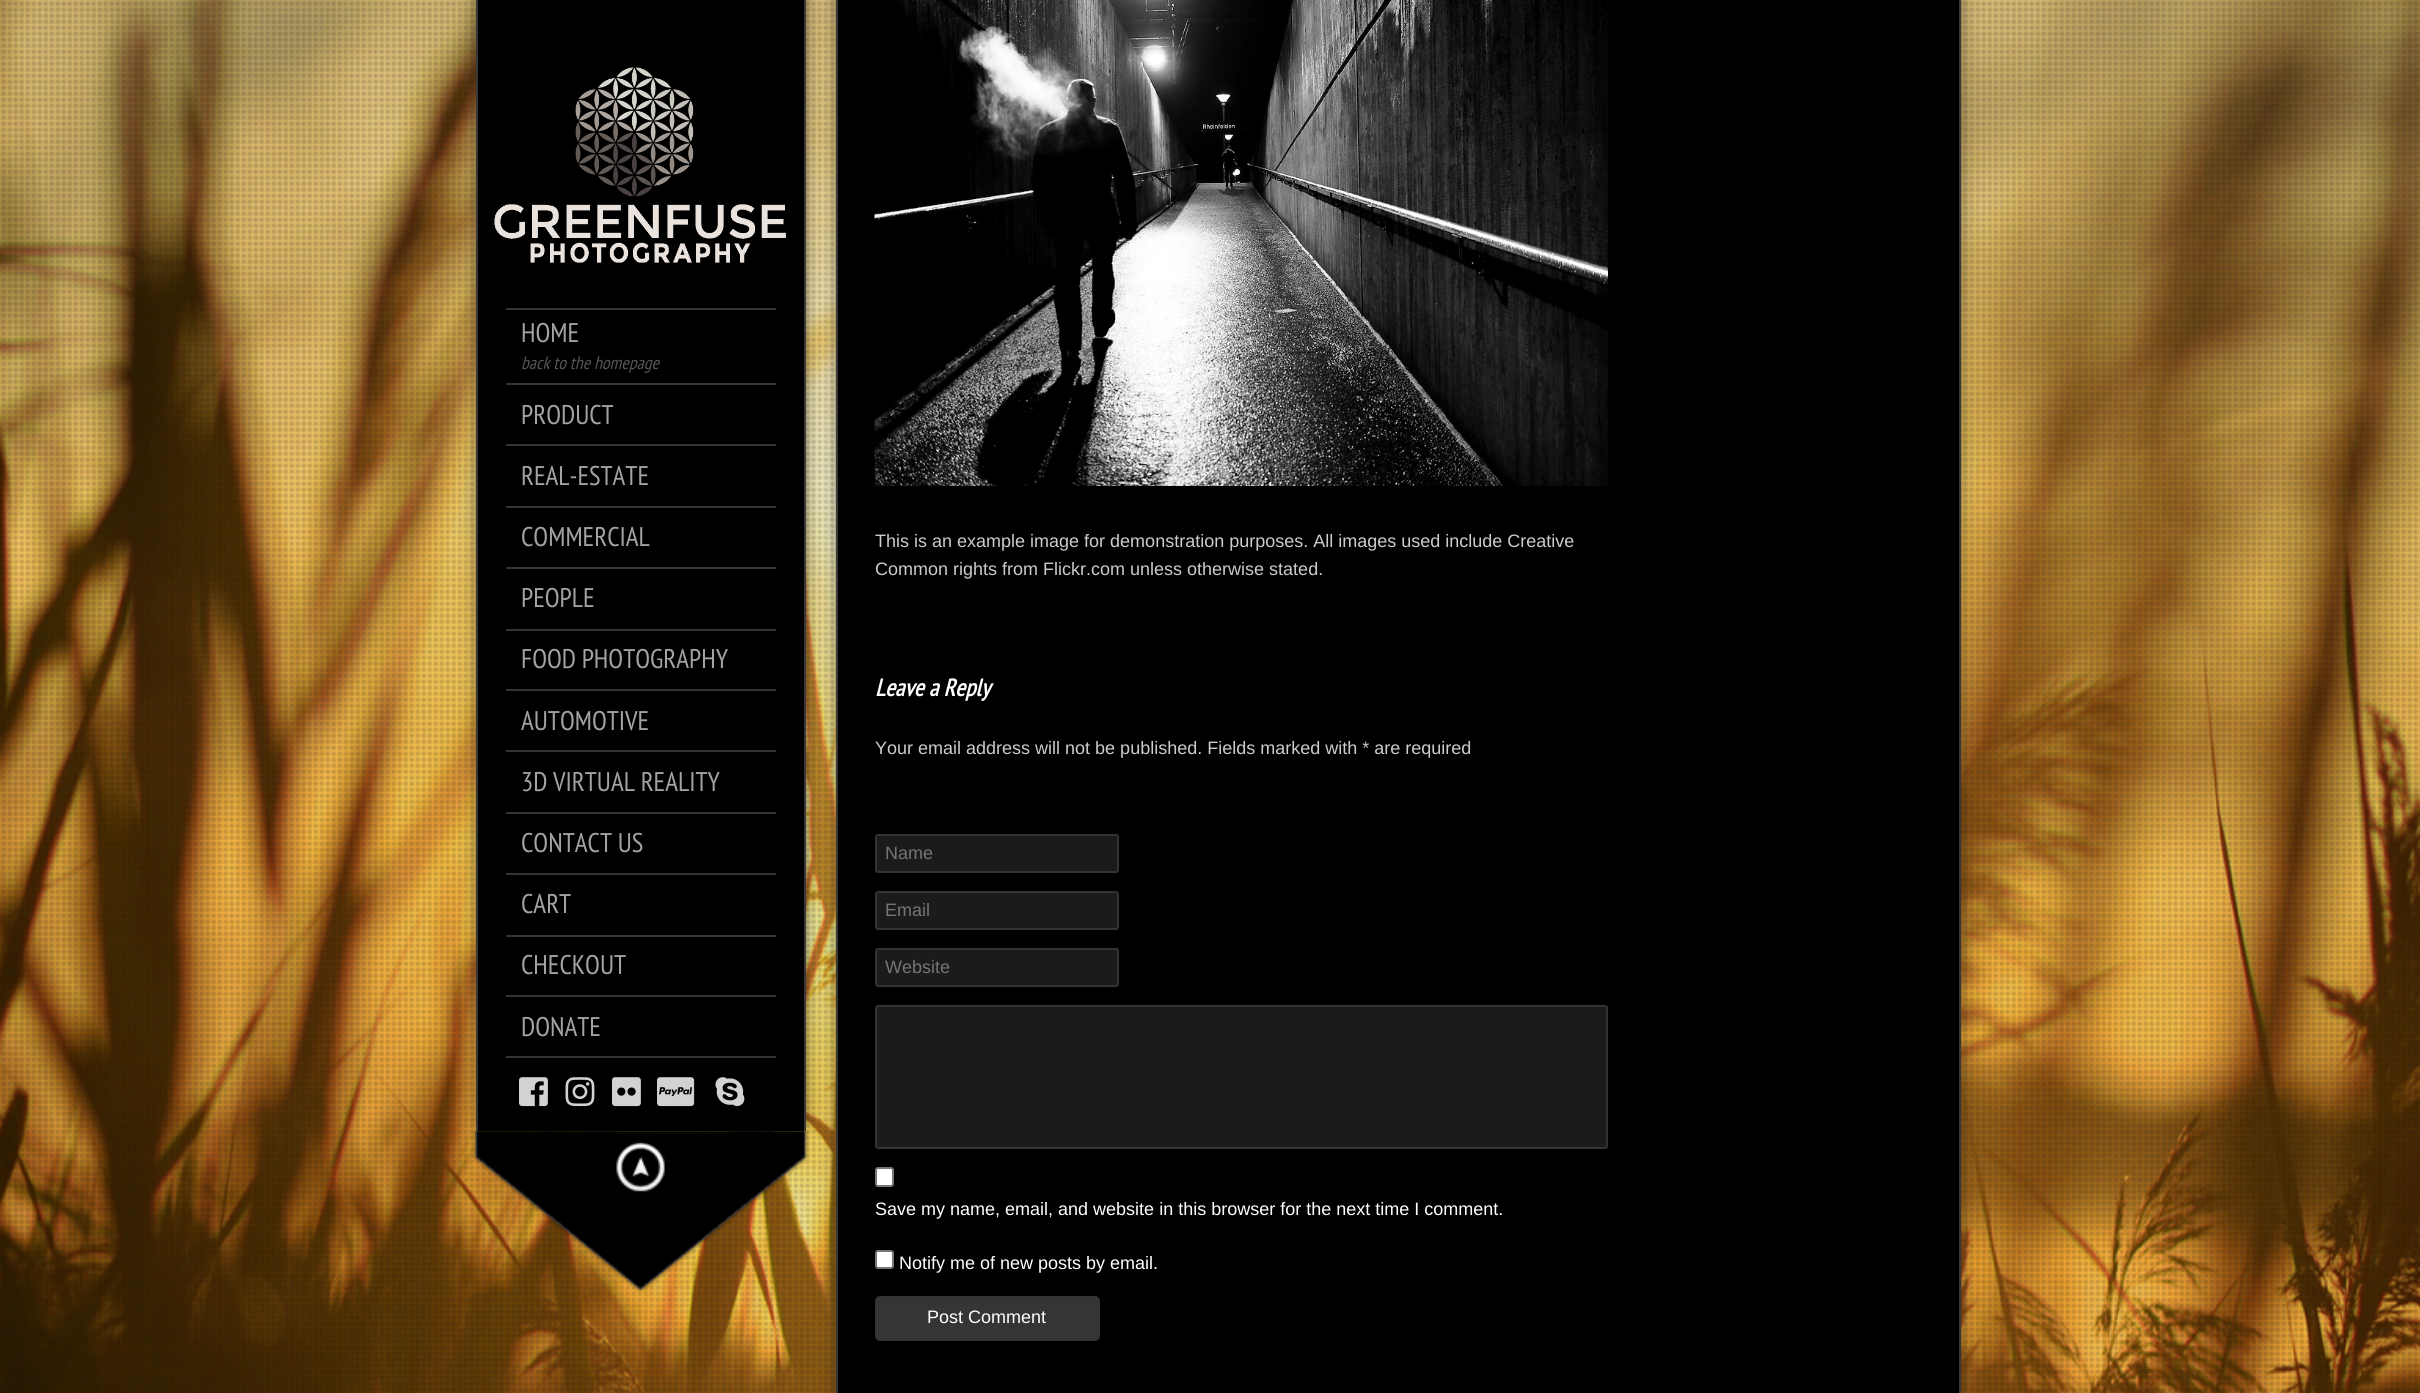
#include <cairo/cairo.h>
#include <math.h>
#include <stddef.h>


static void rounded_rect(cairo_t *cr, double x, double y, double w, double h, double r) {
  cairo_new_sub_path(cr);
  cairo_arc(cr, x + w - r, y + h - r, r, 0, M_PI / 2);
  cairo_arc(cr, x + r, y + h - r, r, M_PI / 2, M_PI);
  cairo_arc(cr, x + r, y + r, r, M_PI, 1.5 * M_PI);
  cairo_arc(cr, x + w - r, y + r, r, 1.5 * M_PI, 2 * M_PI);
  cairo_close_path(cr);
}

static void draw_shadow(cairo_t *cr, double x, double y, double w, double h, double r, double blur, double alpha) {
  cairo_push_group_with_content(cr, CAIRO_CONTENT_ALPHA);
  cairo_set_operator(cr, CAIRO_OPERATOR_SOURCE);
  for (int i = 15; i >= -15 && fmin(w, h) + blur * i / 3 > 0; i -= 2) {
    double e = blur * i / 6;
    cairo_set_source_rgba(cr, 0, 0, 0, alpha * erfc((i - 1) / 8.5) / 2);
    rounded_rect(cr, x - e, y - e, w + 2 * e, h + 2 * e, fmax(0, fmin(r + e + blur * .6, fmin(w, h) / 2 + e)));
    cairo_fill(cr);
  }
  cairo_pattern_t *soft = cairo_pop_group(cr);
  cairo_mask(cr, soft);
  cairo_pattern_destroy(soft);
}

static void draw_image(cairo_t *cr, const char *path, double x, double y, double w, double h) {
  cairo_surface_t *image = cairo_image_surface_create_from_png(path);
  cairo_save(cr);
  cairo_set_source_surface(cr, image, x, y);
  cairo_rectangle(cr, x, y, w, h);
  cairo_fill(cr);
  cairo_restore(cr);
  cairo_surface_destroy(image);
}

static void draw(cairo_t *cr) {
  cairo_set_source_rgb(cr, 1, 1, 1);
  cairo_paint(cr);
  draw_image(cr, "images/1.png", 0, 0, 2420, 1393);
  draw_image(cr, "images/2.png", 0, 0, 2420, 1393);
  draw_image(cr, "images/9.png", 471, 1130, 339, 163);
  cairo_set_source_rgb(cr, 17 / 255.0, 17 / 255.0, 17 / 255.0);
  draw_shadow(cr, 476, -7, 330, 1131, 0, 7.5, 0.5);
  cairo_set_source_rgb(cr, 0, 0, 0);
  cairo_rectangle(cr, 478, 0, 326, 1131);
  cairo_fill(cr);
  cairo_set_source_rgb(cr, 57 / 255.0, 56 / 255.0, 54 / 255.0);
  cairo_rectangle(cr, 804, 0, 2, 1131);
  cairo_fill(cr);
  cairo_rectangle(cr, 476, 0, 2, 1131);
  cairo_fill(cr);
  draw_image(cr, "images/3.png", 494, 67, 292, 196);
  cairo_set_source_rgb(cr, 52 / 255.0, 52 / 255.0, 52 / 255.0);
  cairo_rectangle(cr, 506, 308, 270, 2);
  cairo_fill(cr);
  cairo_rectangle(cr, 506, 383, 270, 2);
  cairo_fill(cr);
  cairo_rectangle(cr, 506, 444, 270, 2);
  cairo_fill(cr);
  cairo_rectangle(cr, 506, 506, 270, 2);
  cairo_fill(cr);
  cairo_rectangle(cr, 506, 567, 270, 2);
  cairo_fill(cr);
  cairo_rectangle(cr, 506, 629, 270, 2);
  cairo_fill(cr);
  cairo_rectangle(cr, 506, 689, 270, 2);
  cairo_fill(cr);
  cairo_rectangle(cr, 506, 750, 270, 2);
  cairo_fill(cr);
  cairo_rectangle(cr, 506, 812, 270, 2);
  cairo_fill(cr);
  cairo_rectangle(cr, 506, 873, 270, 2);
  cairo_fill(cr);
  cairo_rectangle(cr, 506, 935, 270, 2);
  cairo_fill(cr);
  cairo_rectangle(cr, 506, 995, 270, 2);
  cairo_fill(cr);
  cairo_rectangle(cr, 506, 1056, 270, 2);
  cairo_fill(cr);
  draw_image(cr, "images/4.png", 519, 1077, 29, 30);
  draw_image(cr, "images/5.png", 565, 1077, 30, 30);
  draw_image(cr, "images/6.png", 612, 1077, 29, 30);
  draw_image(cr, "images/7.png", 657, 1077, 38, 30);
  draw_image(cr, "images/8.png", 715, 1077, 30, 30);
  draw_image(cr, "images/10.png", 616, 1142, 49, 50);
  cairo_set_source_rgb(cr, 17 / 255.0, 17 / 255.0, 17 / 255.0);
  draw_shadow(cr, 836, -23, 1125, 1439, 0, 7.5, 0.5);
  cairo_set_source_rgb(cr, 0, 0, 0);
  cairo_rectangle(cr, 838, 0, 1121, 1393);
  cairo_fill(cr);
  cairo_set_source_rgb(cr, 57 / 255.0, 56 / 255.0, 54 / 255.0);
  cairo_rectangle(cr, 1959, 0, 2, 1393);
  cairo_fill(cr);
  cairo_rectangle(cr, 836, 0, 2, 1393);
  cairo_fill(cr);
  draw_image(cr, "images/11.png", 874, 0, 734, 486);
  cairo_set_source_rgb(cr, 27 / 255.0, 27 / 255.0, 27 / 255.0);
  rounded_rect(cr, 876, 835, 242, 37, 2);
  cairo_fill_preserve(cr);
  cairo_set_source_rgb(cr, 51 / 255.0, 51 / 255.0, 51 / 255.0);
  cairo_stroke(cr);
  cairo_set_source_rgb(cr, 27 / 255.0, 27 / 255.0, 27 / 255.0);
  rounded_rect(cr, 876, 892, 242, 37, 2);
  cairo_fill_preserve(cr);
  cairo_set_source_rgb(cr, 51 / 255.0, 51 / 255.0, 51 / 255.0);
  cairo_stroke(cr);
  cairo_set_source_rgb(cr, 27 / 255.0, 27 / 255.0, 27 / 255.0);
  rounded_rect(cr, 876, 949, 242, 37, 2);
  cairo_fill_preserve(cr);
  cairo_set_source_rgb(cr, 51 / 255.0, 51 / 255.0, 51 / 255.0);
  cairo_stroke(cr);
  cairo_set_source_rgb(cr, 27 / 255.0, 27 / 255.0, 27 / 255.0);
  rounded_rect(cr, 876, 1006, 731, 142, 2);
  cairo_fill_preserve(cr);
  cairo_set_source_rgb(cr, 51 / 255.0, 51 / 255.0, 51 / 255.0);
  cairo_stroke(cr);
  cairo_set_source_rgb(cr, 1, 1, 1);
  rounded_rect(cr, 876, 1168, 17, 18, 2);
  cairo_fill_preserve(cr);
  cairo_set_source_rgb(cr, 118 / 255.0, 118 / 255.0, 118 / 255.0);
  cairo_stroke(cr);
  cairo_set_source_rgb(cr, 1, 1, 1);
  rounded_rect(cr, 876, 1251, 17, 17, 2);
  cairo_fill_preserve(cr);
  cairo_set_source_rgb(cr, 118 / 255.0, 118 / 255.0, 118 / 255.0);
  cairo_stroke(cr);
  cairo_set_source_rgb(cr, 53 / 255.0, 53 / 255.0, 53 / 255.0);
  rounded_rect(cr, 876, 1297, 223, 43, 4);
  cairo_fill_preserve(cr);
  cairo_set_source_rgb(cr, 51 / 255.0, 51 / 255.0, 51 / 255.0);
  cairo_stroke(cr);
  cairo_select_font_face(cr, "PT Sans Narrow", CAIRO_FONT_SLANT_NORMAL, CAIRO_FONT_WEIGHT_NORMAL);
  cairo_set_font_size(cr, 27);
  cairo_set_source_rgb(cr, 163 / 255.0, 163 / 255.0, 163 / 255.0);
  cairo_move_to(cr, 521, 342);
  cairo_show_text(cr, "HOME");
  cairo_select_font_face(cr, "PT Sans Narrow", CAIRO_FONT_SLANT_ITALIC, CAIRO_FONT_WEIGHT_NORMAL);
  cairo_set_font_size(cr, 18);
  cairo_set_source_rgb(cr, 85 / 255.0, 85 / 255.0, 85 / 255.0);
  cairo_move_to(cr, 521, 369);
  cairo_show_text(cr, "back to the homepage");
  cairo_select_font_face(cr, "PT Sans Narrow", CAIRO_FONT_SLANT_NORMAL, CAIRO_FONT_WEIGHT_NORMAL);
  cairo_set_font_size(cr, 27);
  cairo_set_source_rgb(cr, 163 / 255.0, 163 / 255.0, 163 / 255.0);
  cairo_move_to(cr, 521, 424);
  cairo_show_text(cr, "PRODUCT");
  cairo_move_to(cr, 521, 485);
  cairo_show_text(cr, "REAL-ESTATE");
  cairo_move_to(cr, 521, 546);
  cairo_show_text(cr, "COMMERCIAL");
  cairo_move_to(cr, 521, 607);
  cairo_show_text(cr, "PEOPLE");
  cairo_move_to(cr, 521, 668);
  cairo_show_text(cr, "FOOD PHOTOGRAPHY");
  cairo_move_to(cr, 521, 730);
  cairo_show_text(cr, "AUTOMOTIVE");
  cairo_move_to(cr, 521, 791);
  cairo_show_text(cr, "3D VIRTUAL REALITY");
  cairo_move_to(cr, 521, 852);
  cairo_show_text(cr, "CONTACT US");
  cairo_move_to(cr, 521, 913);
  cairo_show_text(cr, "CART");
  cairo_move_to(cr, 521, 974);
  cairo_show_text(cr, "CHECKOUT");
  cairo_move_to(cr, 521, 1036);
  cairo_show_text(cr, "DONATE");
  cairo_select_font_face(cr, "Liberation Sans", CAIRO_FONT_SLANT_NORMAL, CAIRO_FONT_WEIGHT_NORMAL);
  cairo_set_font_size(cr, 18);
  cairo_set_source_rgb(cr, 204 / 255.0, 204 / 255.0, 204 / 255.0);
  cairo_move_to(cr, 875, 547);
  cairo_show_text(cr, "This is an example image for demonstration purposes. All images used include Creative");
  cairo_move_to(cr, 875, 575);
  cairo_show_text(cr, "Common rights from Flickr.com unless otherwise stated.");
  cairo_select_font_face(cr, "PT Sans Narrow", CAIRO_FONT_SLANT_ITALIC, CAIRO_FONT_WEIGHT_BOLD);
  cairo_set_font_size(cr, 24);
  cairo_set_source_rgb(cr, 1, 1, 1);
  cairo_move_to(cr, 875, 696);
  cairo_show_text(cr, "Leave a Reply");
  cairo_select_font_face(cr, "Liberation Sans", CAIRO_FONT_SLANT_NORMAL, CAIRO_FONT_WEIGHT_NORMAL);
  cairo_set_font_size(cr, 18);
  cairo_set_source_rgb(cr, 204 / 255.0, 204 / 255.0, 204 / 255.0);
  cairo_move_to(cr, 875, 754);
  cairo_show_text(cr, "Your email address will not be published. Fields marked with * are required");
  cairo_set_source_rgb(cr, 117 / 255.0, 117 / 255.0, 117 / 255.0);
  cairo_move_to(cr, 885, 859);
  cairo_show_text(cr, "Name");
  cairo_move_to(cr, 885, 916);
  cairo_show_text(cr, "Email");
  cairo_move_to(cr, 885, 973);
  cairo_show_text(cr, "Website");
  cairo_set_source_rgb(cr, 1, 1, 1);
  cairo_move_to(cr, 875, 1215);
  cairo_show_text(cr, "Save my name, email, and website in this browser for the next time I comment.");
  cairo_move_to(cr, 899, 1269);
  cairo_show_text(cr, "Notify me of new posts by email.");
  cairo_move_to(cr, 927, 1323);
  cairo_show_text(cr, "Post Comment");
}

int main(void) {
  cairo_surface_t *surface = cairo_image_surface_create(CAIRO_FORMAT_RGB24, 2420, 1393);
  cairo_t *cr = cairo_create(surface);
  cairo_font_options_t *options = cairo_font_options_create();
  cairo_font_options_set_hint_metrics(options, CAIRO_HINT_METRICS_OFF);
  cairo_font_options_set_hint_style(options, CAIRO_HINT_STYLE_NONE);
  cairo_set_font_options(cr, options);
  cairo_set_miter_limit(cr, 4);
  draw(cr);
  cairo_surface_write_to_png(surface, "out.png");
  cairo_font_options_destroy(options);
  cairo_destroy(cr);
  cairo_surface_destroy(surface);
  return 0;
}
